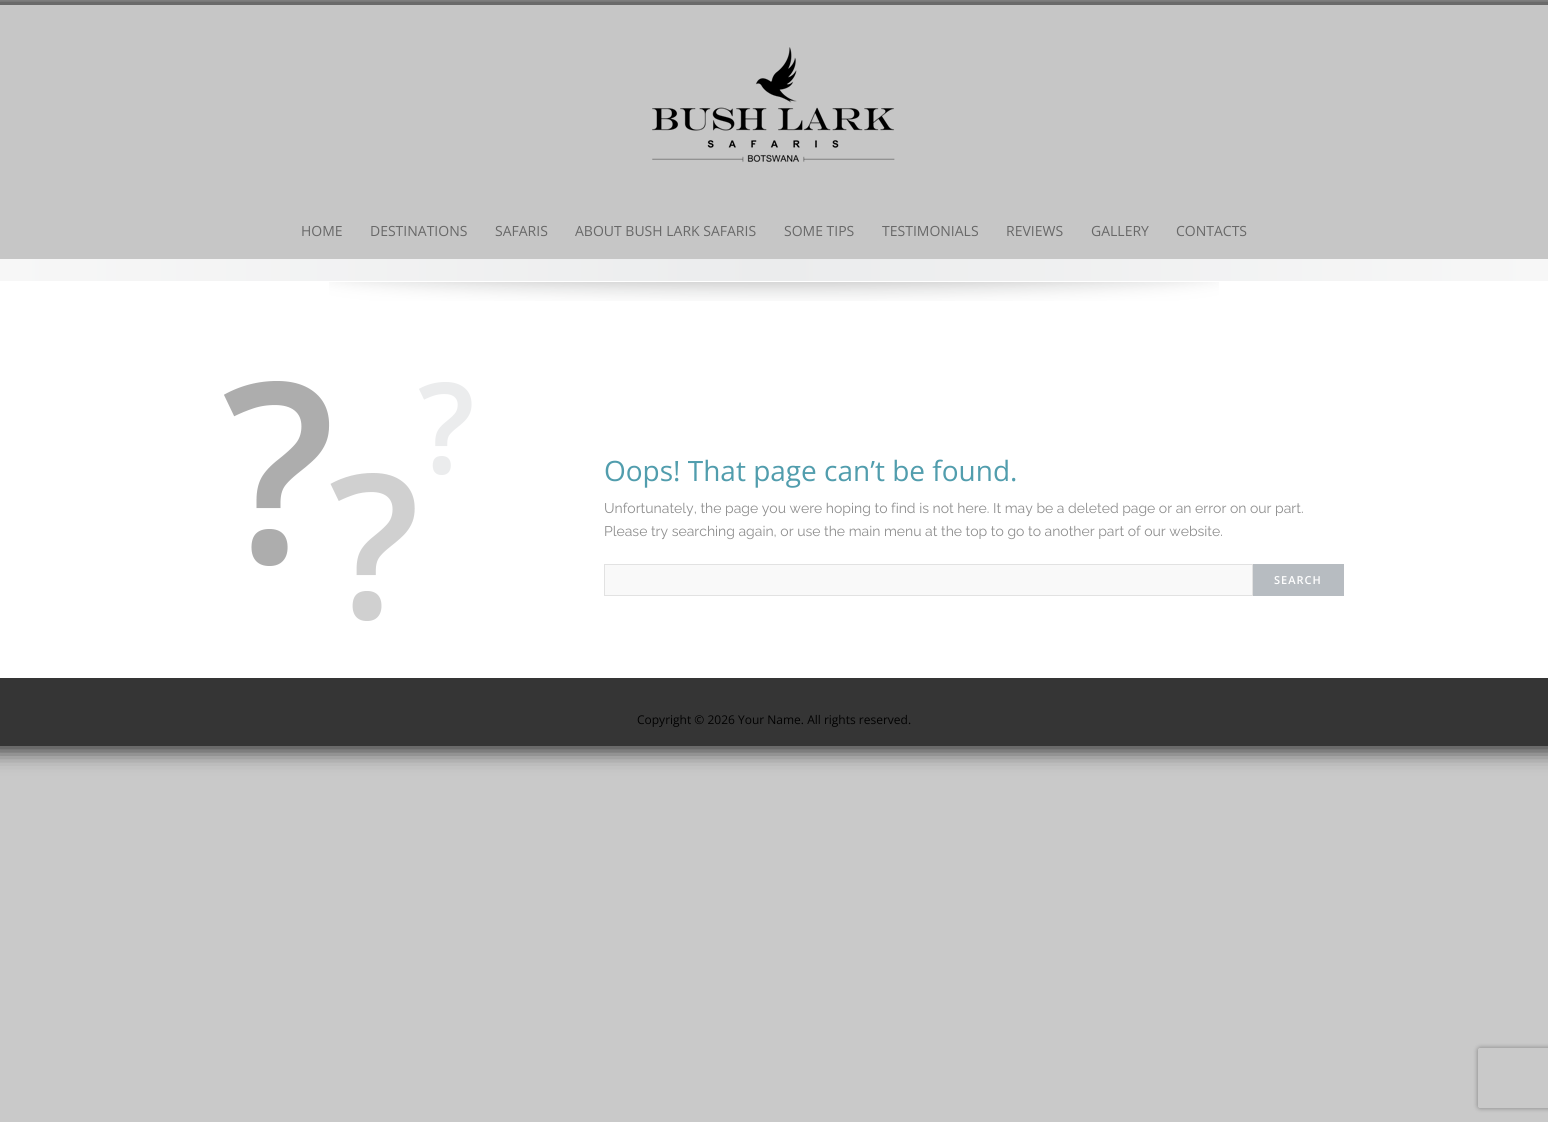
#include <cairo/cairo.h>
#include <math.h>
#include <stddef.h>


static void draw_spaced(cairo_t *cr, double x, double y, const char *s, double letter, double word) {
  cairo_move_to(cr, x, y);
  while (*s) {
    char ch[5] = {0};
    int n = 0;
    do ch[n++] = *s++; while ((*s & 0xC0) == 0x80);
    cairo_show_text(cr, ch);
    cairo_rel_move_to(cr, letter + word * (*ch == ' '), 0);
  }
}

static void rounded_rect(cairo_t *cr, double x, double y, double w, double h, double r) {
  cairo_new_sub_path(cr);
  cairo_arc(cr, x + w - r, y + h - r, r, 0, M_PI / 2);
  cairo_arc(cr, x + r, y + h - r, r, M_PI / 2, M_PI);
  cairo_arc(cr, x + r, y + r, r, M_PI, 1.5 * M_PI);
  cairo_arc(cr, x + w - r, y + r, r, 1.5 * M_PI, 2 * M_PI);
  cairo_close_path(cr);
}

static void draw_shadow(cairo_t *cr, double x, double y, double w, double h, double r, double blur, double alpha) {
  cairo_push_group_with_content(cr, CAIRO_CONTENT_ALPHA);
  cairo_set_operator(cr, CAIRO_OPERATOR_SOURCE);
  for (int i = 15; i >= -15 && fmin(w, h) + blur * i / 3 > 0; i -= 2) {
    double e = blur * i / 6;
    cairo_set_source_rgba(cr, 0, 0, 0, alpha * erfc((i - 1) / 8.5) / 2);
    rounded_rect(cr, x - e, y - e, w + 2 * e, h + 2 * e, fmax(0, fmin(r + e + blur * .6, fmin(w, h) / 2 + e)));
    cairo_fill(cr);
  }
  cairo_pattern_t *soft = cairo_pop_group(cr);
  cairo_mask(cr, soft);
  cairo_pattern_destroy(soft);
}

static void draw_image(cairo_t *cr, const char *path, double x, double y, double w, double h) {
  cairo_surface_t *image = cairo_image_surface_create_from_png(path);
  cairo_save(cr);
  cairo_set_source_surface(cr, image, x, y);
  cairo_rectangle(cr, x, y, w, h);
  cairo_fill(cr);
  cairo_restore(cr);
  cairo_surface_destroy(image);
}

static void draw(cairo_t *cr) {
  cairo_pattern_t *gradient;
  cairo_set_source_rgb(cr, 201 / 255.0, 201 / 255.0, 201 / 255.0);
  cairo_paint(cr);
  cairo_set_source_rgb(cr, 0, 0, 0);
  draw_shadow(cr, -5, 0, 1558, 751, 0, 10, 0.75);
  cairo_set_source_rgb(cr, 1, 1, 1);
  cairo_rectangle(cr, 0, 281, 1548, 397);
  cairo_fill(cr);
  cairo_set_source_rgb(cr, 198 / 255.0, 198 / 255.0, 198 / 255.0);
  cairo_rectangle(cr, 0, 5, 1548, 254);
  cairo_fill(cr);
  draw_image(cr, "images/1.png", 652, 47, 243, 115);
  gradient = cairo_pattern_create_linear(0, 270, 1548, 270);
  cairo_pattern_add_color_stop_rgba(gradient, 0, 247 / 255.0, 247 / 255.0, 247 / 255.0, 1);
  cairo_pattern_add_color_stop_rgba(gradient, 0.5, 235 / 255.0, 236 / 255.0, 237 / 255.0, 1);
  cairo_pattern_add_color_stop_rgba(gradient, 1, 247 / 255.0, 247 / 255.0, 247 / 255.0, 1);
  cairo_set_source(cr, gradient);
  cairo_pattern_destroy(gradient);
  cairo_rectangle(cr, 0, 259, 1548, 22);
  cairo_fill(cr);
  draw_image(cr, "images/2.png", 329, 282, 890, 19);
  draw_image(cr, "images/3.png", 224, 381, 248, 240);
  cairo_set_source_rgb(cr, 249 / 255.0, 249 / 255.0, 249 / 255.0);
  cairo_rectangle(cr, 604.5, 564.5, 648, 31);
  cairo_fill_preserve(cr);
  cairo_set_source_rgb(cr, 226 / 255.0, 226 / 255.0, 226 / 255.0);
  cairo_set_line_width(cr, 1);
  cairo_stroke(cr);
  cairo_set_source_rgb(cr, 183 / 255.0, 188 / 255.0, 193 / 255.0);
  cairo_rectangle(cr, 1253, 564, 91, 32);
  cairo_fill(cr);
  cairo_set_source_rgb(cr, 53 / 255.0, 53 / 255.0, 53 / 255.0);
  cairo_rectangle(cr, 0, 678, 1548, 68);
  cairo_fill(cr);
  cairo_save(cr);
  cairo_set_fill_rule(cr, CAIRO_FILL_RULE_EVEN_ODD);
  cairo_new_path(cr);
  cairo_move_to(cr, 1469, 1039);
  cairo_line_to(cr, 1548, 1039);
  cairo_line_to(cr, 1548, 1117);
  cairo_line_to(cr, 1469, 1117);
  cairo_close_path(cr);
  cairo_move_to(cr, 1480, 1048);
  cairo_line_to(cr, 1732, 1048);
  cairo_curve_to(cr, 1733, 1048, 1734, 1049, 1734, 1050);
  cairo_line_to(cr, 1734, 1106);
  cairo_curve_to(cr, 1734, 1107, 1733, 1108, 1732, 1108);
  cairo_line_to(cr, 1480, 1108);
  cairo_curve_to(cr, 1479, 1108, 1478, 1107, 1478, 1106);
  cairo_line_to(cr, 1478, 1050);
  cairo_curve_to(cr, 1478, 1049, 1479, 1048, 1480, 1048);
  cairo_close_path(cr);
  cairo_clip(cr);
  cairo_set_source_rgb(cr, 128 / 255.0, 128 / 255.0, 128 / 255.0);
  draw_shadow(cr, 1478, 1048, 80, 60, 2, 2.5, 1);
  cairo_restore(cr);
  cairo_select_font_face(cr, "Open Sans", CAIRO_FONT_SLANT_NORMAL, CAIRO_FONT_WEIGHT_NORMAL);
  cairo_set_font_size(cr, 14);
  cairo_set_source_rgb(cr, 104 / 255.0, 104 / 255.0, 104 / 255.0);
  cairo_move_to(cr, 301, 236);
  cairo_show_text(cr, "HOME");
  cairo_move_to(cr, 370, 236);
  cairo_show_text(cr, "DESTINATIONS");
  cairo_move_to(cr, 495, 236);
  cairo_show_text(cr, "SAFARIS");
  cairo_move_to(cr, 575, 236);
  cairo_show_text(cr, "ABOUT BUSH LARK SAFARIS");
  cairo_move_to(cr, 784, 236);
  cairo_show_text(cr, "SOME TIPS");
  cairo_move_to(cr, 882, 236);
  cairo_show_text(cr, "TESTIMONIALS");
  cairo_move_to(cr, 1006, 236);
  cairo_show_text(cr, "REVIEWS");
  cairo_move_to(cr, 1091, 236);
  cairo_show_text(cr, "GALLERY");
  cairo_move_to(cr, 1176, 236);
  cairo_show_text(cr, "CONTACTS");
  cairo_set_font_size(cr, 28);
  cairo_set_source_rgb(cr, 81 / 255.0, 157 / 255.0, 173 / 255.0);
  cairo_move_to(cr, 604, 481);
  cairo_show_text(cr, "Oops! That page can’t be found.");
  cairo_select_font_face(cr, "Raleway", CAIRO_FONT_SLANT_NORMAL, CAIRO_FONT_WEIGHT_NORMAL);
  cairo_set_font_size(cr, 14);
  cairo_set_source_rgb(cr, 142 / 255.0, 142 / 255.0, 142 / 255.0);
  cairo_move_to(cr, 604, 513);
  cairo_show_text(cr, "Unfortunately, the page you were hoping to find is not here. It may be a deleted page or an error on our part.");
  cairo_move_to(cr, 604, 536);
  cairo_show_text(cr, "Please try searching again, or use the main menu at the top to go to another part of our website.");
  cairo_select_font_face(cr, "Open Sans SemiBold", CAIRO_FONT_SLANT_NORMAL, CAIRO_FONT_WEIGHT_NORMAL);
  cairo_set_font_size(cr, 11);
  cairo_set_source_rgb(cr, 1, 1, 1);
  draw_spaced(cr, 1274, 584, "SEARCH", 1, 0);
  cairo_select_font_face(cr, "Open Sans", CAIRO_FONT_SLANT_NORMAL, CAIRO_FONT_WEIGHT_NORMAL);
  cairo_set_font_size(cr, 12);
  cairo_set_source_rgb(cr, 2 / 255.0, 2 / 255.0, 2 / 255.0);
  cairo_move_to(cr, 637, 724);
  cairo_show_text(cr, "Copyright © 2026 Your Name. All rights reserved.");
}

int main(void) {
  cairo_surface_t *surface = cairo_image_surface_create(CAIRO_FORMAT_RGB24, 1548, 1122);
  cairo_t *cr = cairo_create(surface);
  cairo_font_options_t *options = cairo_font_options_create();
  cairo_font_options_set_hint_metrics(options, CAIRO_HINT_METRICS_OFF);
  cairo_font_options_set_hint_style(options, CAIRO_HINT_STYLE_NONE);
  cairo_set_font_options(cr, options);
  cairo_set_miter_limit(cr, 4);
  draw(cr);
  cairo_surface_write_to_png(surface, "out.png");
  cairo_font_options_destroy(options);
  cairo_destroy(cr);
  cairo_surface_destroy(surface);
  return 0;
}
